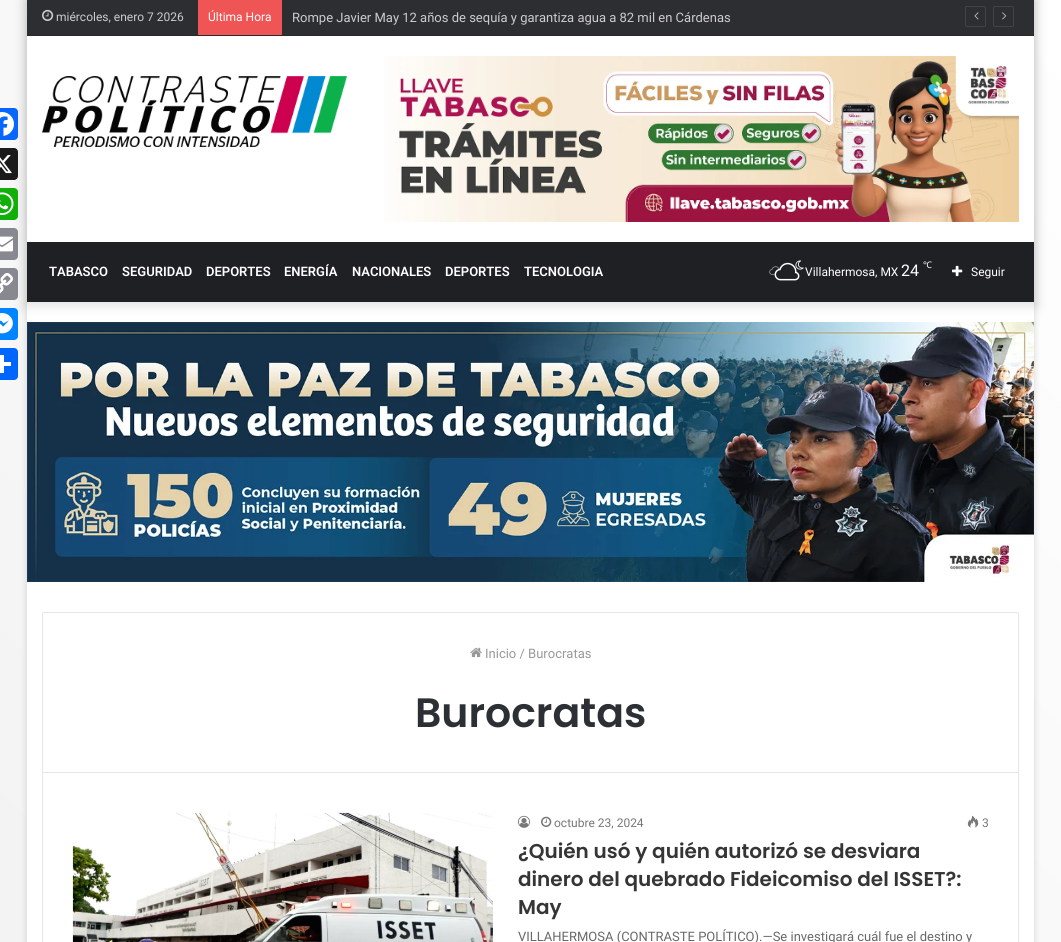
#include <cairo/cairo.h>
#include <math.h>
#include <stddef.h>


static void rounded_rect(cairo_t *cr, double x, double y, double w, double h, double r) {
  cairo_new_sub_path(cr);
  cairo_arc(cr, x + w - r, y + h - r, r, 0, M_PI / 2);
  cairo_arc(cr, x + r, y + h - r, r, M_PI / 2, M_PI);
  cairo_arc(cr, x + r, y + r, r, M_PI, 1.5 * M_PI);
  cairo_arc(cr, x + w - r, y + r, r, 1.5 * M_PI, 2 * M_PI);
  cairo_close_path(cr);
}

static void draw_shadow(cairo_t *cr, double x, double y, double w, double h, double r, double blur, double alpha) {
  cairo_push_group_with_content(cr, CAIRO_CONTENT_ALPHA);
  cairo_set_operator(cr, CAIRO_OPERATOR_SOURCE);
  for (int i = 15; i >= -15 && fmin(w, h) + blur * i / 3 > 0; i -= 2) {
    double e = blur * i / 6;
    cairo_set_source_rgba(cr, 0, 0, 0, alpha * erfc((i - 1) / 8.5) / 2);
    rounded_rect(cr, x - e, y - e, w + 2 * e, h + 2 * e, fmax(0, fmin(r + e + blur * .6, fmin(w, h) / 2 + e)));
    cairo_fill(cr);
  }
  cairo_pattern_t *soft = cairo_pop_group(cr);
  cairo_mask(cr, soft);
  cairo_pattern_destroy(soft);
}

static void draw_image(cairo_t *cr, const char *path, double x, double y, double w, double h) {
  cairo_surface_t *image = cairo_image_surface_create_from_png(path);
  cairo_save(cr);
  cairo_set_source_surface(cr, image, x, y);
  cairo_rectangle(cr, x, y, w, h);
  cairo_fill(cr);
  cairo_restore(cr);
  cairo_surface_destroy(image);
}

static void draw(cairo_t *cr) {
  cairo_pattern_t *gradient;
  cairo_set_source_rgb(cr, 1, 1, 1);
  cairo_paint(cr);
  gradient = cairo_pattern_create_linear(-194, 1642, 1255, 194);
  cairo_pattern_add_color_stop_rgba(gradient, 0, 237 / 255.0, 237 / 255.0, 237 / 255.0, 1);
  cairo_pattern_add_color_stop_rgba(gradient, 1, 1, 1, 1, 1);
  cairo_set_source(cr, gradient);
  cairo_pattern_destroy(gradient);
  cairo_rectangle(cr, 0, 0, 1061, 942);
  cairo_fill(cr);
  cairo_set_source_rgb(cr, 171 / 255.0, 171 / 255.0, 171 / 255.0);
  draw_shadow(cr, 27, 1, 1007, 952, 0, 3.5, 0.5);
  cairo_set_source_rgb(cr, 1, 1, 1);
  cairo_rectangle(cr, 27, 36, 1007, 906);
  cairo_fill(cr);
  draw_image(cr, "images/11.png", 27, 322, 1007, 260);
  cairo_save(cr);
  cairo_set_fill_rule(cr, CAIRO_FILL_RULE_EVEN_ODD);
  cairo_new_path(cr);
  cairo_move_to(cr, 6, 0);
  cairo_line_to(cr, 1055, 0);
  cairo_line_to(cr, 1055, 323);
  cairo_line_to(cr, 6, 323);
  cairo_close_path(cr);
  cairo_move_to(cr, 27, 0);
  cairo_line_to(cr, 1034, 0);
  cairo_line_to(cr, 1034, 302);
  cairo_line_to(cr, 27, 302);
  cairo_close_path(cr);
  cairo_clip(cr);
  cairo_set_source_rgb(cr, 0, 0, 0);
  draw_shadow(cr, 22, -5, 1017, 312, 0, 5, 0.1);
  cairo_restore(cr);
  cairo_set_source_rgb(cr, 44 / 255.0, 46 / 255.0, 50 / 255.0);
  cairo_rectangle(cr, 27, 0, 1007, 35);
  cairo_fill(cr);
  cairo_set_source_rgb(cr, 40 / 255.0, 41 / 255.0, 45 / 255.0);
  cairo_rectangle(cr, 27, 35, 1007, 1);
  cairo_fill(cr);
  draw_image(cr, "images/1.png", 42, 9, 12, 12);
  cairo_set_source_rgb(cr, 240 / 255.0, 85 / 255.0, 85 / 255.0);
  cairo_rectangle(cr, 198, 0, 84, 35);
  cairo_fill(cr);
  rounded_rect(cr, 965.5, 6.5, 20, 20, 1.5);
  cairo_set_source_rgb(cr, 65 / 255.0, 67 / 255.0, 71 / 255.0);
  cairo_set_line_width(cr, 1);
  cairo_stroke(cr);
  draw_image(cr, "images/2.png", 974, 12, 5, 8);
  rounded_rect(cr, 993.5, 6.5, 20, 20, 1.5);
  cairo_stroke(cr);
  draw_image(cr, "images/3.png", 1002, 12, 5, 8);
  draw_image(cr, "images/4.png", 42, 76, 305, 71);
  draw_image(cr, "images/5.png", 382, 56, 637, 166);
  cairo_set_source_rgb(cr, 31 / 255.0, 32 / 255.0, 36 / 255.0);
  cairo_rectangle(cr, 27, 242, 1007, 60);
  cairo_fill(cr);
  draw_image(cr, "images/6.png", 795, 260, 9, 10);
  draw_image(cr, "images/8.png", 769, 266, 11, 9);
  draw_image(cr, "images/9.png", 774, 268, 8, 7);
  draw_image(cr, "images/7.png", 774, 262, 26, 19);
  draw_image(cr, "images/10.png", 952, 265, 11, 12);
  cairo_set_source_rgb(cr, 8 / 255.0, 102 / 255.0, 1);
  rounded_rect(cr, -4, 108, 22, 32, 4);
  cairo_fill(cr);
  draw_image(cr, "images/12.png", 0, 112, 14, 24);
  cairo_set_source_rgb(cr, 26 / 255.0, 26 / 255.0, 26 / 255.0);
  rounded_rect(cr, -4, 148, 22, 32, 4);
  cairo_fill(cr);
  draw_image(cr, "images/13.png", 0, 155, 12, 19);
  cairo_set_source_rgb(cr, 18 / 255.0, 175 / 255.0, 10 / 255.0);
  rounded_rect(cr, -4, 188, 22, 32, 4);
  cairo_fill(cr);
  draw_image(cr, "images/14.png", 0, 192, 14, 23);
  cairo_set_source_rgb(cr, 136 / 255.0, 137 / 255.0, 144 / 255.0);
  rounded_rect(cr, -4, 228, 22, 32, 4);
  cairo_fill(cr);
  draw_image(cr, "images/15.png", 0, 236, 13, 16);
  rounded_rect(cr, -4, 268, 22, 32, 4);
  cairo_fill(cr);
  draw_image(cr, "images/16.png", 0, 273, 13, 21);
  cairo_set_source_rgb(cr, 0, 132 / 255.0, 1);
  rounded_rect(cr, -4, 308, 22, 32, 4);
  cairo_fill(cr);
  draw_image(cr, "images/17.png", 0, 313, 13, 21);
  cairo_set_source_rgb(cr, 1 / 255.0, 102 / 255.0, 1);
  rounded_rect(cr, -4, 348, 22, 32, 4);
  cairo_fill(cr);
  cairo_set_source_rgb(cr, 1, 1, 1);
  cairo_rectangle(cr, 0, 355, 4, 18);
  cairo_fill(cr);
  cairo_rectangle(cr, 0, 362, 11, 4);
  cairo_fill(cr);
  cairo_new_path(cr);
  cairo_move_to(cr, 44, 612.5);
  cairo_line_to(cr, 1017, 612.5);
  cairo_curve_to(cr, 1018, 612.5, 1018.5, 613, 1018.5, 614);
  cairo_line_to(cr, 1018.5, 772.5);
  cairo_line_to(cr, 42.5, 772.5);
  cairo_line_to(cr, 42.5, 614);
  cairo_curve_to(cr, 42.5, 613, 43, 612.5, 44, 612.5);
  cairo_close_path(cr);
  cairo_set_source_rgb(cr, 230 / 255.0, 230 / 255.0, 230 / 255.0);
  cairo_stroke(cr);
  draw_image(cr, "images/18.png", 470, 647, 12, 11);
  cairo_rectangle(cr, 1018, 773, 1, 169);
  cairo_fill(cr);
  cairo_rectangle(cr, 42, 773, 1, 169);
  cairo_fill(cr);
  draw_image(cr, "images/19.png", 72, 812, 421, 130);
  draw_image(cr, "images/20.png", 518, 815, 12, 13);
  draw_image(cr, "images/21.png", 541, 816, 11, 11);
  draw_image(cr, "images/22.png", 967, 815, 12, 13);
  cairo_select_font_face(cr, "Roboto", CAIRO_FONT_SLANT_NORMAL, CAIRO_FONT_WEIGHT_NORMAL);
  cairo_set_font_size(cr, 12);
  cairo_set_source_rgb(cr, 204 / 255.0, 204 / 255.0, 204 / 255.0);
  cairo_move_to(cr, 56, 21);
  cairo_show_text(cr, "miércoles, enero 7 2026");
  cairo_set_source_rgb(cr, 1, 1, 1);
  cairo_move_to(cr, 208, 21);
  cairo_show_text(cr, "Última Hora");
  cairo_set_font_size(cr, 13);
  cairo_set_source_rgb(cr, 204 / 255.0, 204 / 255.0, 204 / 255.0);
  cairo_move_to(cr, 292, 22);
  cairo_show_text(cr, "Rompe Javier May 12 años de sequía y garantiza agua a 82 mil en Cárdenas");
  cairo_select_font_face(cr, "Roboto SemiBold", CAIRO_FONT_SLANT_NORMAL, CAIRO_FONT_WEIGHT_NORMAL);
  cairo_set_source_rgb(cr, 1, 1, 1);
  cairo_move_to(cr, 49, 276);
  cairo_show_text(cr, "TABASCO");
  cairo_move_to(cr, 122, 276);
  cairo_show_text(cr, "SEGURIDAD");
  cairo_move_to(cr, 206, 276);
  cairo_show_text(cr, "DEPORTES");
  cairo_move_to(cr, 284, 276);
  cairo_show_text(cr, "ENERGÍA");
  cairo_move_to(cr, 352, 276);
  cairo_show_text(cr, "NACIONALES");
  cairo_move_to(cr, 445, 276);
  cairo_show_text(cr, "DEPORTES");
  cairo_move_to(cr, 524, 276);
  cairo_show_text(cr, "TECNOLOGIA");
  cairo_select_font_face(cr, "Roboto", CAIRO_FONT_SLANT_NORMAL, CAIRO_FONT_WEIGHT_NORMAL);
  cairo_set_font_size(cr, 12);
  cairo_move_to(cr, 805, 276);
  cairo_show_text(cr, "Villahermosa, MX");
  cairo_set_font_size(cr, 16);
  cairo_move_to(cr, 901, 276);
  cairo_show_text(cr, "24");
  cairo_select_font_face(cr, "Noto Sans", CAIRO_FONT_SLANT_NORMAL, CAIRO_FONT_WEIGHT_NORMAL);
  cairo_set_font_size(cr, 9);
  cairo_move_to(cr, 923, 268);
  cairo_show_text(cr, "℃");
  cairo_select_font_face(cr, "Roboto", CAIRO_FONT_SLANT_NORMAL, CAIRO_FONT_WEIGHT_NORMAL);
  cairo_set_font_size(cr, 12);
  cairo_move_to(cr, 971, 276);
  cairo_show_text(cr, "Seguir");
  cairo_set_font_size(cr, 13);
  cairo_set_source_rgb(cr, 153 / 255.0, 153 / 255.0, 153 / 255.0);
  cairo_move_to(cr, 485, 658);
  cairo_show_text(cr, "Inicio / Burocratas");
  cairo_select_font_face(cr, "Poppins SemiBold", CAIRO_FONT_SLANT_NORMAL, CAIRO_FONT_WEIGHT_NORMAL);
  cairo_set_font_size(cr, 41);
  cairo_set_source_rgb(cr, 44 / 255.0, 47 / 255.0, 52 / 255.0);
  cairo_move_to(cr, 415, 727);
  cairo_show_text(cr, "Burocratas");
  cairo_select_font_face(cr, "Roboto", CAIRO_FONT_SLANT_NORMAL, CAIRO_FONT_WEIGHT_NORMAL);
  cairo_set_font_size(cr, 12);
  cairo_set_source_rgb(cr, 119 / 255.0, 119 / 255.0, 119 / 255.0);
  cairo_move_to(cr, 554, 827);
  cairo_show_text(cr, "octubre 23, 2024");
  cairo_move_to(cr, 982, 827);
  cairo_show_text(cr, "3");
  cairo_select_font_face(cr, "Poppins SemiBold", CAIRO_FONT_SLANT_NORMAL, CAIRO_FONT_WEIGHT_NORMAL);
  cairo_set_font_size(cr, 20);
  cairo_set_source_rgb(cr, 53 / 255.0, 53 / 255.0, 53 / 255.0);
  cairo_move_to(cr, 518, 858);
  cairo_show_text(cr, "¿Quién usó y quién autorizó se desviara");
  cairo_move_to(cr, 518, 886);
  cairo_show_text(cr, "dinero del quebrado Fideicomiso del ISSET?:");
  cairo_move_to(cr, 518, 914);
  cairo_show_text(cr, "May");
  cairo_select_font_face(cr, "Roboto", CAIRO_FONT_SLANT_NORMAL, CAIRO_FONT_WEIGHT_NORMAL);
  cairo_set_font_size(cr, 13);
  cairo_set_source_rgb(cr, 104 / 255.0, 104 / 255.0, 104 / 255.0);
  cairo_move_to(cr, 518, 941);
  cairo_show_text(cr, "VILLAHERMOSA (CONTRASTE POLÍTICO).—Se investigará cuál fue el destino y");
}

int main(void) {
  cairo_surface_t *surface = cairo_image_surface_create(CAIRO_FORMAT_RGB24, 1061, 942);
  cairo_t *cr = cairo_create(surface);
  cairo_font_options_t *options = cairo_font_options_create();
  cairo_font_options_set_hint_metrics(options, CAIRO_HINT_METRICS_OFF);
  cairo_font_options_set_hint_style(options, CAIRO_HINT_STYLE_NONE);
  cairo_set_font_options(cr, options);
  cairo_set_miter_limit(cr, 4);
  draw(cr);
  cairo_surface_write_to_png(surface, "out.png");
  cairo_font_options_destroy(options);
  cairo_destroy(cr);
  cairo_surface_destroy(surface);
  return 0;
}
